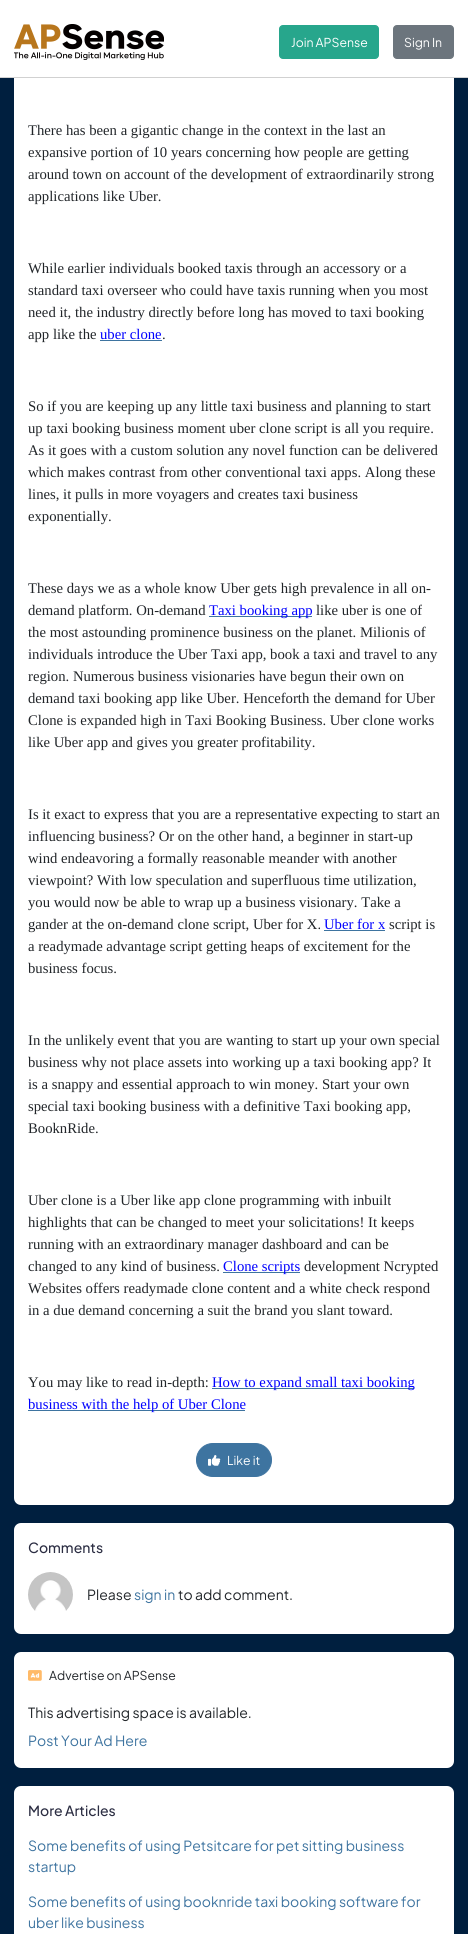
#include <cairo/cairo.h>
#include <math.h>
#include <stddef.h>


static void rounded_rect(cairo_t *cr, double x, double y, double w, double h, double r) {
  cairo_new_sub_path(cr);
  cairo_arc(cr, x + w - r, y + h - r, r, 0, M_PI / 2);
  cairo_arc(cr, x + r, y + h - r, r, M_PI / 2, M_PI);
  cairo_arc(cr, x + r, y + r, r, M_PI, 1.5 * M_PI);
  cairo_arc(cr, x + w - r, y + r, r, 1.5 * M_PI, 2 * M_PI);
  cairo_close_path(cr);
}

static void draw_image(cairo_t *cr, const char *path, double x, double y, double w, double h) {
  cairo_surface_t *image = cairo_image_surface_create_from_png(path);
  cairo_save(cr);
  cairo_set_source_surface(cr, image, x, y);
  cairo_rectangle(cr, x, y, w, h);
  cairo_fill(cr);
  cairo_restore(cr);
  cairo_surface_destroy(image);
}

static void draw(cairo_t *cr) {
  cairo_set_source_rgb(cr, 0, 31 / 255.0, 63 / 255.0);
  cairo_paint(cr);
  cairo_set_source_rgb(cr, 1, 1, 1);
  rounded_rect(cr, 14, -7, 440, 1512, 7);
  cairo_fill(cr);
  cairo_rectangle(cr, 0, 0, 468, 77);
  cairo_fill(cr);
  cairo_set_source_rgb(cr, 209 / 255.0, 209 / 255.0, 209 / 255.0);
  cairo_rectangle(cr, 0, 77, 468, 1);
  cairo_fill(cr);
  draw_image(cr, "images/1.png", 14, 24, 150, 36);
  cairo_set_source_rgb(cr, 39 / 255.0, 166 / 255.0, 140 / 255.0);
  rounded_rect(cr, 279.5, 25.5, 99, 33, 3.5);
  cairo_fill_preserve(cr);
  cairo_set_line_width(cr, 1);
  cairo_stroke(cr);
  cairo_set_source_rgb(cr, 108 / 255.0, 117 / 255.0, 125 / 255.0);
  rounded_rect(cr, 393.5, 25.5, 60, 33, 3.5);
  cairo_fill_preserve(cr);
  cairo_stroke(cr);
  cairo_set_source_rgb(cr, 62 / 255.0, 116 / 255.0, 160 / 255.0);
  cairo_rectangle(cr, 100, 340, 62, 1);
  cairo_fill(cr);
  cairo_rectangle(cr, 209, 616, 103, 1);
  cairo_fill(cr);
  cairo_rectangle(cr, 324, 930, 61, 1);
  cairo_fill(cr);
  cairo_rectangle(cr, 223, 1272, 77, 1);
  cairo_fill(cr);
  cairo_rectangle(cr, 212, 1388, 202, 1);
  cairo_fill(cr);
  cairo_rectangle(cr, 28, 1410, 217, 1);
  cairo_fill(cr);
  rounded_rect(cr, 196.5, 1443.5, 75, 33, 16.5);
  cairo_fill_preserve(cr);
  cairo_stroke(cr);
  draw_image(cr, "images/2.png", 208, 1455, 13, 11);
  cairo_set_source_rgb(cr, 1, 1, 1);
  rounded_rect(cr, 14, 1523, 440, 111, 7);
  cairo_fill(cr);
  draw_image(cr, "images/3.png", 28, 1572, 45, 39);
  rounded_rect(cr, 14, 1652, 440, 116, 7);
  cairo_fill(cr);
  draw_image(cr, "images/4.png", 28, 1670, 14, 11);
  rounded_rect(cr, 14, 1786, 440, 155, 7);
  cairo_fill(cr);
  cairo_select_font_face(cr, "Plus Jakarta Sans", CAIRO_FONT_SLANT_NORMAL, CAIRO_FONT_WEIGHT_NORMAL);
  cairo_set_font_size(cr, 12.25);
  cairo_move_to(cr, 291, 47);
  cairo_show_text(cr, "Join APSense");
  cairo_move_to(cr, 404, 47);
  cairo_show_text(cr, "Sign In");
  cairo_select_font_face(cr, "Liberation Serif", CAIRO_FONT_SLANT_NORMAL, CAIRO_FONT_WEIGHT_NORMAL);
  cairo_set_font_size(cr, 14.7);
  cairo_set_source_rgb(cr, 33 / 255.0, 37 / 255.0, 41 / 255.0);
  cairo_move_to(cr, 28, 135);
  cairo_show_text(cr, "There has been a gigantic change in the context in the last an");
  cairo_move_to(cr, 28, 157);
  cairo_show_text(cr, "expansive portion of 10 years concerning how people are getting");
  cairo_move_to(cr, 28, 179);
  cairo_show_text(cr, "around town on account of the development of extraordinarily strong");
  cairo_move_to(cr, 28, 201);
  cairo_show_text(cr, "applications like Uber.");
  cairo_move_to(cr, 28, 273);
  cairo_show_text(cr, "While earlier individuals booked taxis through an accessory or a");
  cairo_move_to(cr, 28, 295);
  cairo_show_text(cr, "standard taxi overseer who could have taxis running when you most");
  cairo_move_to(cr, 28, 317);
  cairo_show_text(cr, "need it, the industry directly before long has moved to taxi booking");
  cairo_move_to(cr, 28, 339);
  cairo_show_text(cr, "app like the");
  cairo_set_source_rgb(cr, 0, 0, 1);
  cairo_move_to(cr, 100, 339);
  cairo_show_text(cr, "uber clone");
  cairo_set_source_rgb(cr, 33 / 255.0, 37 / 255.0, 41 / 255.0);
  cairo_move_to(cr, 162, 339);
  cairo_show_text(cr, ".");
  cairo_move_to(cr, 28, 411);
  cairo_show_text(cr, "So if you are keeping up any little taxi business and planning to start");
  cairo_move_to(cr, 28, 433);
  cairo_show_text(cr, "up taxi booking business moment uber clone script is all you require.");
  cairo_move_to(cr, 28, 455);
  cairo_show_text(cr, "As it goes with a custom solution any novel function can be delivered");
  cairo_move_to(cr, 28, 477);
  cairo_show_text(cr, "which makes contrast from other conventional taxi apps. Along these");
  cairo_move_to(cr, 28, 499);
  cairo_show_text(cr, "lines, it pulls in more voyagers and creates taxi business");
  cairo_move_to(cr, 28, 521);
  cairo_show_text(cr, "exponentially.");
  cairo_move_to(cr, 28, 593);
  cairo_show_text(cr, "These days we as a whole know Uber gets high prevalence in all on-");
  cairo_move_to(cr, 28, 615);
  cairo_show_text(cr, "demand platform. On-demand");
  cairo_set_source_rgb(cr, 0, 0, 1);
  cairo_move_to(cr, 209, 615);
  cairo_show_text(cr, "Taxi booking app");
  cairo_set_source_rgb(cr, 33 / 255.0, 37 / 255.0, 41 / 255.0);
  cairo_move_to(cr, 316, 615);
  cairo_show_text(cr, "like uber is one of");
  cairo_move_to(cr, 28, 637);
  cairo_show_text(cr, "the most astounding prominence business on the planet. Milionis of");
  cairo_move_to(cr, 28, 659);
  cairo_show_text(cr, "individuals introduce the Uber Taxi app, book a taxi and travel to any");
  cairo_move_to(cr, 28, 681);
  cairo_show_text(cr, "region. Numerous business visionaries have begun their own on");
  cairo_move_to(cr, 28, 703);
  cairo_show_text(cr, "demand taxi booking app like Uber. Henceforth the demand for Uber");
  cairo_move_to(cr, 28, 725);
  cairo_show_text(cr, "Clone is expanded high in Taxi Booking Business. Uber clone works");
  cairo_move_to(cr, 28, 747);
  cairo_show_text(cr, "like Uber app and gives you greater profitability.");
  cairo_move_to(cr, 28, 819);
  cairo_show_text(cr, "Is it exact to express that you are a representative expecting to start an");
  cairo_move_to(cr, 28, 841);
  cairo_show_text(cr, "influencing business? Or on the other hand, a beginner in start-up");
  cairo_move_to(cr, 28, 863);
  cairo_show_text(cr, "wind endeavoring a formally reasonable meander with another");
  cairo_move_to(cr, 28, 885);
  cairo_show_text(cr, "viewpoint? With low speculation and superfluous time utilization,");
  cairo_move_to(cr, 28, 907);
  cairo_show_text(cr, "you would now be able to wrap up a business visionary. Take a");
  cairo_move_to(cr, 28, 929);
  cairo_show_text(cr, "gander at the on-demand clone script, Uber for X.");
  cairo_set_source_rgb(cr, 0, 0, 1);
  cairo_move_to(cr, 324, 929);
  cairo_show_text(cr, "Uber for x");
  cairo_set_source_rgb(cr, 33 / 255.0, 37 / 255.0, 41 / 255.0);
  cairo_move_to(cr, 389, 929);
  cairo_show_text(cr, "script is");
  cairo_move_to(cr, 28, 951);
  cairo_show_text(cr, "a readymade advantage script getting heaps of excitement for the");
  cairo_move_to(cr, 28, 973);
  cairo_show_text(cr, "business focus.");
  cairo_move_to(cr, 28, 1045);
  cairo_show_text(cr, "In the unlikely event that you are wanting to start up your own special");
  cairo_move_to(cr, 28, 1067);
  cairo_show_text(cr, "business why not place assets into working up a taxi booking app? It");
  cairo_move_to(cr, 28, 1089);
  cairo_show_text(cr, "is a snappy and essential approach to win money. Start your own");
  cairo_move_to(cr, 28, 1111);
  cairo_show_text(cr, "special taxi booking business with a definitive Taxi booking app,");
  cairo_move_to(cr, 28, 1133);
  cairo_show_text(cr, "BooknRide.");
  cairo_move_to(cr, 28, 1205);
  cairo_show_text(cr, "Uber clone is a Uber like app clone programming with inbuilt");
  cairo_move_to(cr, 28, 1227);
  cairo_show_text(cr, "highlights that can be changed to meet your solicitations! It keeps");
  cairo_move_to(cr, 28, 1249);
  cairo_show_text(cr, "running with an extraordinary manager dashboard and can be");
  cairo_move_to(cr, 28, 1271);
  cairo_show_text(cr, "changed to any kind of business.");
  cairo_set_source_rgb(cr, 0, 0, 1);
  cairo_move_to(cr, 223, 1271);
  cairo_show_text(cr, "Clone scripts");
  cairo_set_source_rgb(cr, 33 / 255.0, 37 / 255.0, 41 / 255.0);
  cairo_move_to(cr, 304, 1271);
  cairo_show_text(cr, "development Ncrypted");
  cairo_move_to(cr, 28, 1293);
  cairo_show_text(cr, "Websites offers readymade clone content and a white check respond");
  cairo_move_to(cr, 28, 1315);
  cairo_show_text(cr, "in a due demand concerning a suit the brand you slant toward.");
  cairo_move_to(cr, 28, 1387);
  cairo_show_text(cr, "You may like to read in-depth:");
  cairo_set_source_rgb(cr, 0, 0, 1);
  cairo_move_to(cr, 212, 1387);
  cairo_show_text(cr, "How to expand small taxi booking");
  cairo_move_to(cr, 28, 1409);
  cairo_show_text(cr, "business with the help of Uber Clone");
  cairo_select_font_face(cr, "Plus Jakarta Sans", CAIRO_FONT_SLANT_NORMAL, CAIRO_FONT_WEIGHT_NORMAL);
  cairo_set_font_size(cr, 12.25);
  cairo_set_source_rgb(cr, 1, 1, 1);
  cairo_move_to(cr, 227, 1465);
  cairo_show_text(cr, "Like it");
  cairo_select_font_face(cr, "Plus Jakarta Sans Medium", CAIRO_FONT_SLANT_NORMAL, CAIRO_FONT_WEIGHT_NORMAL);
  cairo_set_font_size(cr, 14);
  cairo_set_source_rgb(cr, 43 / 255.0, 45 / 255.0, 66 / 255.0);
  cairo_move_to(cr, 28, 1553);
  cairo_show_text(cr, "Comments");
  cairo_select_font_face(cr, "Plus Jakarta Sans", CAIRO_FONT_SLANT_NORMAL, CAIRO_FONT_WEIGHT_NORMAL);
  cairo_set_source_rgb(cr, 33 / 255.0, 37 / 255.0, 41 / 255.0);
  cairo_move_to(cr, 87, 1600);
  cairo_show_text(cr, "Please");
  cairo_set_source_rgb(cr, 62 / 255.0, 116 / 255.0, 160 / 255.0);
  cairo_move_to(cr, 134, 1600);
  cairo_show_text(cr, "sign in");
  cairo_set_source_rgb(cr, 33 / 255.0, 37 / 255.0, 41 / 255.0);
  cairo_move_to(cr, 178, 1600);
  cairo_show_text(cr, "to add comment.");
  cairo_set_font_size(cr, 12.25);
  cairo_move_to(cr, 49, 1680);
  cairo_show_text(cr, "Advertise on APSense");
  cairo_set_font_size(cr, 14);
  cairo_move_to(cr, 28, 1718);
  cairo_show_text(cr, "This advertising space is available.");
  cairo_set_source_rgb(cr, 62 / 255.0, 116 / 255.0, 160 / 255.0);
  cairo_move_to(cr, 28, 1746);
  cairo_show_text(cr, "Post Your Ad Here");
  cairo_select_font_face(cr, "Plus Jakarta Sans Medium", CAIRO_FONT_SLANT_NORMAL, CAIRO_FONT_WEIGHT_NORMAL);
  cairo_set_source_rgb(cr, 43 / 255.0, 45 / 255.0, 66 / 255.0);
  cairo_move_to(cr, 28, 1816);
  cairo_show_text(cr, "More Articles");
  cairo_select_font_face(cr, "Plus Jakarta Sans", CAIRO_FONT_SLANT_NORMAL, CAIRO_FONT_WEIGHT_NORMAL);
  cairo_set_source_rgb(cr, 62 / 255.0, 116 / 255.0, 160 / 255.0);
  cairo_move_to(cr, 28, 1851);
  cairo_show_text(cr, "Some benefits of using Petsitcare for pet sitting business");
  cairo_move_to(cr, 28, 1872);
  cairo_show_text(cr, "startup");
  cairo_move_to(cr, 28, 1907);
  cairo_show_text(cr, "Some benefits of using booknride taxi booking software for");
  cairo_move_to(cr, 28, 1928);
  cairo_show_text(cr, "uber like business");
}

int main(void) {
  cairo_surface_t *surface = cairo_image_surface_create(CAIRO_FORMAT_RGB24, 468, 1934);
  cairo_t *cr = cairo_create(surface);
  cairo_font_options_t *options = cairo_font_options_create();
  cairo_font_options_set_hint_metrics(options, CAIRO_HINT_METRICS_OFF);
  cairo_font_options_set_hint_style(options, CAIRO_HINT_STYLE_NONE);
  cairo_set_font_options(cr, options);
  cairo_set_miter_limit(cr, 4);
  draw(cr);
  cairo_surface_write_to_png(surface, "out.png");
  cairo_font_options_destroy(options);
  cairo_destroy(cr);
  cairo_surface_destroy(surface);
  return 0;
}
